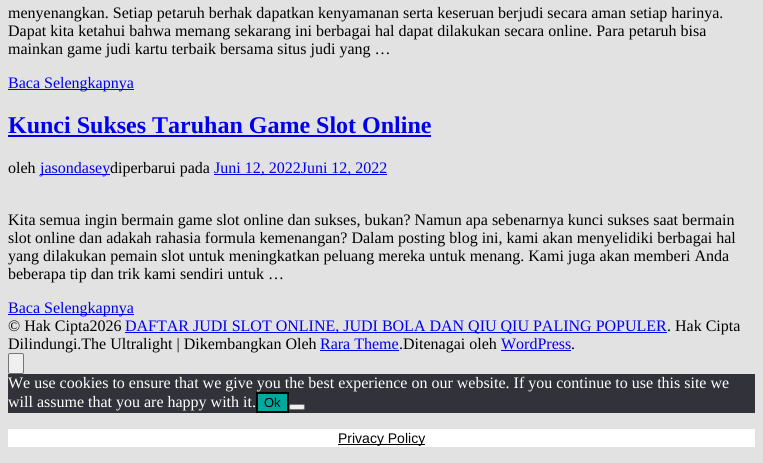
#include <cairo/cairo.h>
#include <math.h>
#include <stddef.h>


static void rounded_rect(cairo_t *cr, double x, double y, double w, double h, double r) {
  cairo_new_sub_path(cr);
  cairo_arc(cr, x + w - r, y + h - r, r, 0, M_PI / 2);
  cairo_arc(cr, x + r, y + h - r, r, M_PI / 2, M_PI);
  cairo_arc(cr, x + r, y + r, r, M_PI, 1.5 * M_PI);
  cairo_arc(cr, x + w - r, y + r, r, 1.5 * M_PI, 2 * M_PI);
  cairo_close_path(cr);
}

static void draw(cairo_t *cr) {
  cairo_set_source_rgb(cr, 226 / 255.0, 226 / 255.0, 226 / 255.0);
  cairo_paint(cr);
  cairo_set_source_rgb(cr, 0, 0, 238 / 255.0);
  cairo_rectangle(cr, 8, 89, 126, 1);
  cairo_fill(cr);
  cairo_rectangle(cr, 8, 135, 423, 2);
  cairo_fill(cr);
  cairo_rectangle(cr, 40, 174, 70, 1);
  cairo_fill(cr);
  cairo_rectangle(cr, 214, 174, 173, 1);
  cairo_fill(cr);
  cairo_rectangle(cr, 8, 314, 126, 1);
  cairo_fill(cr);
  cairo_rectangle(cr, 125, 332, 542, 1);
  cairo_fill(cr);
  cairo_rectangle(cr, 320, 350, 79, 1);
  cairo_fill(cr);
  cairo_rectangle(cr, 501, 350, 70, 1);
  cairo_fill(cr);
  cairo_set_source_rgb(cr, 239 / 255.0, 239 / 255.0, 239 / 255.0);
  rounded_rect(cr, 8.5, 353.5, 15, 20, 1.5);
  cairo_fill_preserve(cr);
  cairo_set_source_rgb(cr, 118 / 255.0, 118 / 255.0, 118 / 255.0);
  cairo_set_line_width(cr, 1);
  cairo_stroke(cr);
  cairo_set_source_rgb(cr, 50 / 255.0, 50 / 255.0, 58 / 255.0);
  cairo_rectangle(cr, 8, 374, 747, 39);
  cairo_fill(cr);
  cairo_set_source_rgb(cr, 0, 169 / 255.0, 157 / 255.0);
  cairo_rectangle(cr, 257, 393, 31, 19);
  cairo_fill_preserve(cr);
  cairo_set_source_rgb(cr, 0, 0, 0);
  cairo_set_line_width(cr, 2);
  cairo_stroke(cr);
  cairo_set_source_rgb(cr, 239 / 255.0, 239 / 255.0, 239 / 255.0);
  rounded_rect(cr, 289.5, 404.5, 15, 5, 1.5);
  cairo_fill_preserve(cr);
  cairo_set_source_rgb(cr, 118 / 255.0, 118 / 255.0, 118 / 255.0);
  cairo_set_line_width(cr, 1);
  cairo_stroke(cr);
  cairo_set_source_rgb(cr, 1, 1, 1);
  cairo_rectangle(cr, 8, 429, 747, 18);
  cairo_fill(cr);
  cairo_set_source_rgb(cr, 0, 0, 0);
  cairo_rectangle(cr, 338, 444, 87, 1);
  cairo_fill(cr);
  cairo_select_font_face(cr, "Liberation Serif", CAIRO_FONT_SLANT_NORMAL, CAIRO_FONT_WEIGHT_NORMAL);
  cairo_set_font_size(cr, 16);
  cairo_move_to(cr, 8, 18);
  cairo_show_text(cr, "menyenangkan. Setiap petaruh berhak dapatkan kenyamanan serta keseruan berjudi secara aman setiap harinya.");
  cairo_move_to(cr, 8, 36);
  cairo_show_text(cr, "Dapat kita ketahui bahwa memang sekarang ini berbagai hal dapat dilakukan secara online. Para petaruh bisa");
  cairo_move_to(cr, 8, 54);
  cairo_show_text(cr, "mainkan game judi kartu terbaik bersama situs judi yang …");
  cairo_set_source_rgb(cr, 0, 0, 238 / 255.0);
  cairo_move_to(cr, 8, 88);
  cairo_show_text(cr, "Baca Selengkapnya");
  cairo_select_font_face(cr, "Liberation Serif", CAIRO_FONT_SLANT_NORMAL, CAIRO_FONT_WEIGHT_BOLD);
  cairo_set_font_size(cr, 24);
  cairo_move_to(cr, 8, 133);
  cairo_show_text(cr, "Kunci Sukses Taruhan Game Slot Online");
  cairo_select_font_face(cr, "Liberation Serif", CAIRO_FONT_SLANT_NORMAL, CAIRO_FONT_WEIGHT_NORMAL);
  cairo_set_font_size(cr, 16);
  cairo_set_source_rgb(cr, 0, 0, 0);
  cairo_move_to(cr, 8, 173);
  cairo_show_text(cr, "oleh");
  cairo_set_source_rgb(cr, 0, 0, 238 / 255.0);
  cairo_move_to(cr, 40, 173);
  cairo_show_text(cr, "jasondasey");
  cairo_set_source_rgb(cr, 0, 0, 0);
  cairo_move_to(cr, 110, 173);
  cairo_show_text(cr, "diperbarui pada");
  cairo_set_source_rgb(cr, 0, 0, 238 / 255.0);
  cairo_move_to(cr, 214, 173);
  cairo_show_text(cr, "Juni 12, 2022Juni 12, 2022");
  cairo_set_source_rgb(cr, 0, 0, 0);
  cairo_move_to(cr, 8, 225);
  cairo_show_text(cr, "Kita semua ingin bermain game slot online dan sukses, bukan? Namun apa sebenarnya kunci sukses saat bermain");
  cairo_move_to(cr, 8, 243);
  cairo_show_text(cr, "slot online dan adakah rahasia formula kemenangan? Dalam posting blog ini, kami akan menyelidiki berbagai hal");
  cairo_move_to(cr, 8, 261);
  cairo_show_text(cr, "yang dilakukan pemain slot untuk meningkatkan peluang mereka untuk menang. Kami juga akan memberi Anda");
  cairo_move_to(cr, 8, 279);
  cairo_show_text(cr, "beberapa tip dan trik kami sendiri untuk …");
  cairo_set_source_rgb(cr, 0, 0, 238 / 255.0);
  cairo_move_to(cr, 8, 313);
  cairo_show_text(cr, "Baca Selengkapnya");
  cairo_set_source_rgb(cr, 0, 0, 0);
  cairo_move_to(cr, 8, 331);
  cairo_show_text(cr, "© Hak Cipta2026");
  cairo_set_source_rgb(cr, 0, 0, 238 / 255.0);
  cairo_move_to(cr, 125, 331);
  cairo_show_text(cr, "DAFTAR JUDI SLOT ONLINE, JUDI BOLA DAN QIU QIU PALING POPULER");
  cairo_set_source_rgb(cr, 0, 0, 0);
  cairo_move_to(cr, 667, 331);
  cairo_show_text(cr, ". Hak Cipta");
  cairo_move_to(cr, 8, 349);
  cairo_show_text(cr, "Dilindungi.The Ultralight | Dikembangkan Oleh");
  cairo_set_source_rgb(cr, 0, 0, 238 / 255.0);
  cairo_move_to(cr, 320, 349);
  cairo_show_text(cr, "Rara Theme");
  cairo_set_source_rgb(cr, 0, 0, 0);
  cairo_move_to(cr, 399, 349);
  cairo_show_text(cr, ".Ditenagai oleh");
  cairo_set_source_rgb(cr, 0, 0, 238 / 255.0);
  cairo_move_to(cr, 501, 349);
  cairo_show_text(cr, "WordPress");
  cairo_set_source_rgb(cr, 0, 0, 0);
  cairo_move_to(cr, 571, 349);
  cairo_show_text(cr, ".");
  cairo_set_source_rgb(cr, 1, 1, 1);
  cairo_move_to(cr, 8, 388);
  cairo_show_text(cr, "We use cookies to ensure that we give you the best experience on our website. If you continue to use this site we");
  cairo_move_to(cr, 8, 407);
  cairo_show_text(cr, "will assume that you are happy with it.");
  cairo_select_font_face(cr, "Liberation Sans", CAIRO_FONT_SLANT_NORMAL, CAIRO_FONT_WEIGHT_NORMAL);
  cairo_set_font_size(cr, 13);
  cairo_set_source_rgb(cr, 0, 0, 0);
  cairo_move_to(cr, 264, 407);
  cairo_show_text(cr, "Ok");
  cairo_set_font_size(cr, 14);
  cairo_move_to(cr, 338, 443);
  cairo_show_text(cr, "Privacy Policy");
}

int main(void) {
  cairo_surface_t *surface = cairo_image_surface_create(CAIRO_FORMAT_RGB24, 763, 463);
  cairo_t *cr = cairo_create(surface);
  cairo_font_options_t *options = cairo_font_options_create();
  cairo_font_options_set_hint_metrics(options, CAIRO_HINT_METRICS_OFF);
  cairo_font_options_set_hint_style(options, CAIRO_HINT_STYLE_NONE);
  cairo_set_font_options(cr, options);
  cairo_set_miter_limit(cr, 4);
  draw(cr);
  cairo_surface_write_to_png(surface, "out.png");
  cairo_font_options_destroy(options);
  cairo_destroy(cr);
  cairo_surface_destroy(surface);
  return 0;
}
